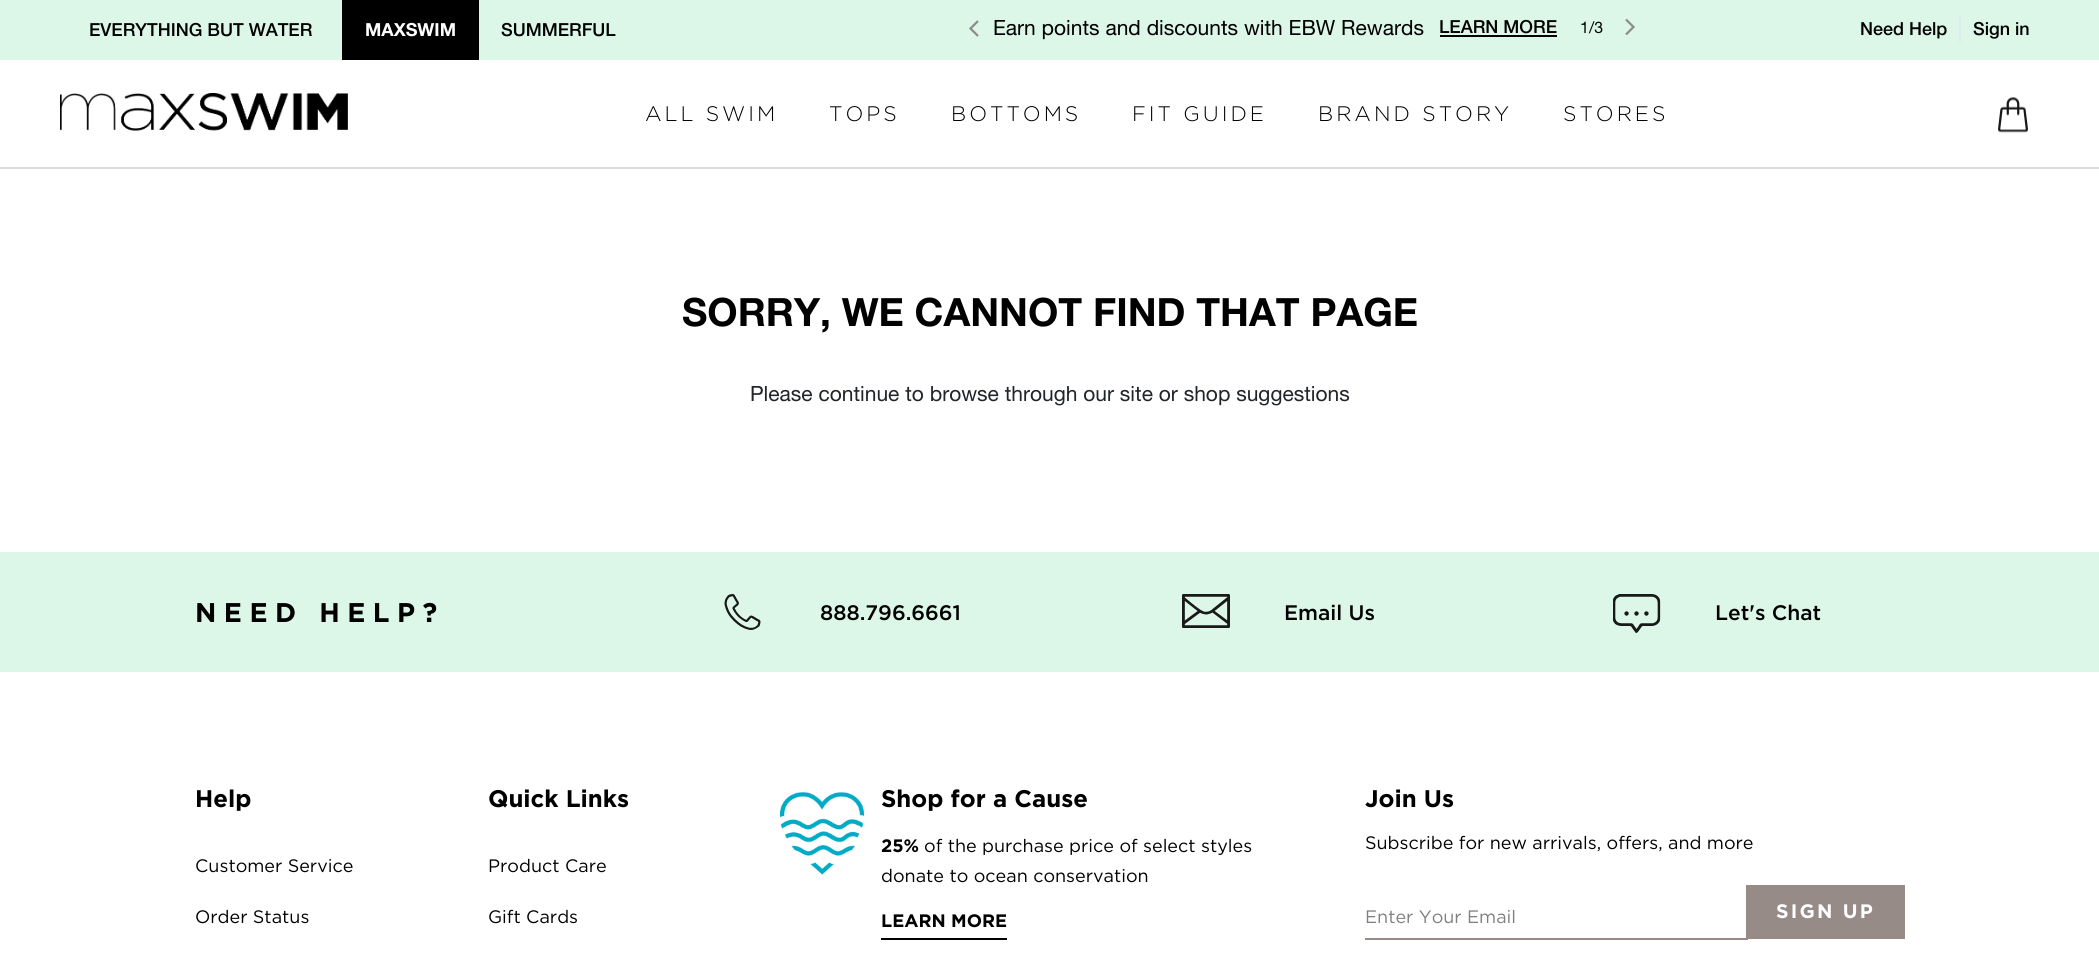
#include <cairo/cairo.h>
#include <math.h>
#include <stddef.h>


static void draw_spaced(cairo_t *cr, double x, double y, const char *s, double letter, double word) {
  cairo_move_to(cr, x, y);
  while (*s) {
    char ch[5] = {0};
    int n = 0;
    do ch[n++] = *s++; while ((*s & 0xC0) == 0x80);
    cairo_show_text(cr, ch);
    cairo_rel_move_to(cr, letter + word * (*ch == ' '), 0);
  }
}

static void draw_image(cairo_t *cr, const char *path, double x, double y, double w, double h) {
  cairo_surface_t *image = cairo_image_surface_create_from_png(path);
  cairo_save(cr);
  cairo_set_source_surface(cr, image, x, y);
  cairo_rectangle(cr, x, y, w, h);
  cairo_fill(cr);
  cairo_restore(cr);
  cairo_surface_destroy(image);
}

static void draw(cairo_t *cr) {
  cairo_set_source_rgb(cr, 1, 1, 1);
  cairo_paint(cr);
  cairo_set_source_rgb(cr, 220 / 255.0, 247 / 255.0, 232 / 255.0);
  cairo_rectangle(cr, 0, 0, 2099, 60);
  cairo_fill(cr);
  cairo_set_source_rgb(cr, 0, 0, 0);
  cairo_rectangle(cr, 342, 0, 137, 60);
  cairo_fill(cr);
  cairo_new_path(cr);
  cairo_move_to(cr, 978, 21);
  cairo_line_to(cr, 970.5, 28.5);
  cairo_line_to(cr, 978, 36);
  cairo_set_source_rgb(cr, 139 / 255.0, 138 / 255.0, 138 / 255.0);
  cairo_set_line_width(cr, 2.2);
  cairo_stroke(cr);
  cairo_set_source_rgb(cr, 0, 0, 0);
  cairo_rectangle(cr, 1440, 35, 117, 2);
  cairo_fill(cr);
  cairo_new_path(cr);
  cairo_move_to(cr, 1626, 19.5);
  cairo_line_to(cr, 1633.5, 27);
  cairo_line_to(cr, 1626, 34.5);
  cairo_set_source_rgb(cr, 139 / 255.0, 138 / 255.0, 138 / 255.0);
  cairo_stroke(cr);
  cairo_set_source_rgb(cr, 217 / 255.0, 237 / 255.0, 239 / 255.0);
  cairo_rectangle(cr, 1959, 15, 2, 27);
  cairo_fill(cr);
  cairo_set_source_rgb(cr, 220 / 255.0, 219 / 255.0, 219 / 255.0);
  cairo_rectangle(cr, 0, 167, 2099, 2);
  cairo_fill(cr);
  draw_image(cr, "images/1.png", 60, 93, 288, 38);
  draw_image(cr, "images/2.png", 1998, 97, 30, 36);
  cairo_set_source_rgb(cr, 220 / 255.0, 247 / 255.0, 232 / 255.0);
  cairo_rectangle(cr, 0, 552, 2099, 120);
  cairo_fill(cr);
  draw_image(cr, "images/3.png", 724, 594, 37, 36);
  draw_image(cr, "images/4.png", 1182, 594, 48, 34);
  draw_image(cr, "images/5.png", 1613, 594, 48, 39);
  draw_image(cr, "images/6.png", 780, 792, 84, 83);
  cairo_set_source_rgb(cr, 0, 0, 0);
  cairo_rectangle(cr, 881, 938, 126, 2);
  cairo_fill(cr);
  cairo_set_source_rgb(cr, 151 / 255.0, 139 / 255.0, 135 / 255.0);
  cairo_rectangle(cr, 1365, 938, 383, 2);
  cairo_fill(cr);
  cairo_rectangle(cr, 1746, 885, 159, 54);
  cairo_fill(cr);
  cairo_select_font_face(cr, "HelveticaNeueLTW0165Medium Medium", CAIRO_FONT_SLANT_NORMAL, CAIRO_FONT_WEIGHT_NORMAL);
  cairo_set_font_size(cr, 18);
  cairo_set_source_rgb(cr, 0, 0, 0);
  cairo_move_to(cr, 89, 36);
  cairo_show_text(cr, "EVERYTHING BUT WATER");
  cairo_select_font_face(cr, "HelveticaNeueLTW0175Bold", CAIRO_FONT_SLANT_NORMAL, CAIRO_FONT_WEIGHT_BOLD);
  cairo_set_source_rgb(cr, 1, 1, 1);
  cairo_move_to(cr, 365, 36);
  cairo_show_text(cr, "MAXSWIM");
  cairo_select_font_face(cr, "HelveticaNeueLTW0165Medium Medium", CAIRO_FONT_SLANT_NORMAL, CAIRO_FONT_WEIGHT_NORMAL);
  cairo_set_source_rgb(cr, 0, 0, 0);
  cairo_move_to(cr, 501, 36);
  cairo_show_text(cr, "SUMMERFUL");
  cairo_select_font_face(cr, "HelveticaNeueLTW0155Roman", CAIRO_FONT_SLANT_NORMAL, CAIRO_FONT_WEIGHT_NORMAL);
  cairo_set_font_size(cr, 21);
  cairo_move_to(cr, 993, 35);
  cairo_show_text(cr, "Earn points and discounts with EBW Rewards");
  cairo_select_font_face(cr, "HelveticaNeueLTW0165Medium Medium", CAIRO_FONT_SLANT_NORMAL, CAIRO_FONT_WEIGHT_NORMAL);
  cairo_set_font_size(cr, 18);
  cairo_move_to(cr, 1439, 33);
  cairo_show_text(cr, "LEARN MORE");
  cairo_select_font_face(cr, "HelveticaNeueLTW0155Roman", CAIRO_FONT_SLANT_NORMAL, CAIRO_FONT_WEIGHT_NORMAL);
  cairo_set_font_size(cr, 16);
  cairo_move_to(cr, 1580, 33);
  cairo_show_text(cr, "1/3");
  cairo_select_font_face(cr, "HelveticaNeueLTW0165Medium Medium", CAIRO_FONT_SLANT_NORMAL, CAIRO_FONT_WEIGHT_NORMAL);
  cairo_set_font_size(cr, 18);
  cairo_move_to(cr, 1860, 35);
  cairo_show_text(cr, "Need Help");
  cairo_move_to(cr, 1973, 35);
  cairo_show_text(cr, "Sign in");
  cairo_select_font_face(cr, "Gotham Light", CAIRO_FONT_SLANT_NORMAL, CAIRO_FONT_WEIGHT_NORMAL);
  cairo_set_font_size(cr, 21);
  draw_spaced(cr, 645, 121, "ALL SWIM", 3, 0);
  draw_spaced(cr, 829, 121, "TOPS", 3, 0);
  draw_spaced(cr, 951, 121, "BOTTOMS", 3, 0);
  draw_spaced(cr, 1132, 121, "FIT GUIDE", 3, 0);
  draw_spaced(cr, 1318, 121, "BRAND STORY", 3, 0);
  draw_spaced(cr, 1563, 121, "STORES", 3, 0);
  cairo_select_font_face(cr, "HelveticaNeueLTW0175Bold", CAIRO_FONT_SLANT_NORMAL, CAIRO_FONT_WEIGHT_BOLD);
  cairo_set_font_size(cr, 39);
  cairo_move_to(cr, 682, 326);
  cairo_show_text(cr, "SORRY, WE CANNOT FIND THAT PAGE");
  cairo_select_font_face(cr, "HelveticaNeueLTW0155Roman", CAIRO_FONT_SLANT_NORMAL, CAIRO_FONT_WEIGHT_NORMAL);
  cairo_set_font_size(cr, 21);
  cairo_set_source_rgb(cr, 33 / 255.0, 37 / 255.0, 41 / 255.0);
  cairo_move_to(cr, 750, 401);
  cairo_show_text(cr, "Please continue to browse through our site or shop suggestions");
  cairo_select_font_face(cr, "Gotham", CAIRO_FONT_SLANT_NORMAL, CAIRO_FONT_WEIGHT_BOLD);
  cairo_set_font_size(cr, 27);
  cairo_set_source_rgb(cr, 0, 0, 0);
  draw_spaced(cr, 195, 622, "NEED HELP?", 7.5, 0);
  cairo_select_font_face(cr, "Gotham Medium", CAIRO_FONT_SLANT_NORMAL, CAIRO_FONT_WEIGHT_NORMAL);
  cairo_set_font_size(cr, 21);
  cairo_move_to(cr, 820, 620);
  cairo_show_text(cr, "888.796.6661");
  cairo_move_to(cr, 1284, 620);
  cairo_show_text(cr, "Email Us");
  cairo_move_to(cr, 1715, 620);
  cairo_show_text(cr, "Let's Chat");
  cairo_select_font_face(cr, "Gotham", CAIRO_FONT_SLANT_NORMAL, CAIRO_FONT_WEIGHT_BOLD);
  cairo_set_font_size(cr, 24);
  cairo_move_to(cr, 195, 807);
  cairo_show_text(cr, "Help");
  cairo_select_font_face(cr, "Gotham", CAIRO_FONT_SLANT_NORMAL, CAIRO_FONT_WEIGHT_NORMAL);
  cairo_set_font_size(cr, 18);
  cairo_move_to(cr, 195, 872);
  cairo_show_text(cr, "Customer Service");
  cairo_move_to(cr, 195, 923);
  cairo_show_text(cr, "Order Status");
  cairo_select_font_face(cr, "Gotham", CAIRO_FONT_SLANT_NORMAL, CAIRO_FONT_WEIGHT_BOLD);
  cairo_set_font_size(cr, 24);
  cairo_move_to(cr, 488, 807);
  cairo_show_text(cr, "Quick Links");
  cairo_select_font_face(cr, "Gotham", CAIRO_FONT_SLANT_NORMAL, CAIRO_FONT_WEIGHT_NORMAL);
  cairo_set_font_size(cr, 18);
  cairo_move_to(cr, 488, 872);
  cairo_show_text(cr, "Product Care");
  cairo_move_to(cr, 488, 923);
  cairo_show_text(cr, "Gift Cards");
  cairo_select_font_face(cr, "Gotham", CAIRO_FONT_SLANT_NORMAL, CAIRO_FONT_WEIGHT_BOLD);
  cairo_set_font_size(cr, 24);
  cairo_move_to(cr, 881, 807);
  cairo_show_text(cr, "Shop for a Cause");
  cairo_set_font_size(cr, 18);
  cairo_move_to(cr, 881, 852);
  cairo_show_text(cr, "25%");
  cairo_select_font_face(cr, "Gotham", CAIRO_FONT_SLANT_NORMAL, CAIRO_FONT_WEIGHT_NORMAL);
  cairo_move_to(cr, 924, 852);
  cairo_show_text(cr, "of the purchase price of select styles");
  cairo_move_to(cr, 881, 882);
  cairo_show_text(cr, "donate to ocean conservation");
  cairo_select_font_face(cr, "Gotham", CAIRO_FONT_SLANT_NORMAL, CAIRO_FONT_WEIGHT_BOLD);
  cairo_move_to(cr, 881, 927);
  cairo_show_text(cr, "LEARN MORE");
  cairo_set_font_size(cr, 24);
  cairo_move_to(cr, 1365, 807);
  cairo_show_text(cr, "Join Us");
  cairo_select_font_face(cr, "Gotham", CAIRO_FONT_SLANT_NORMAL, CAIRO_FONT_WEIGHT_NORMAL);
  cairo_set_font_size(cr, 18);
  cairo_move_to(cr, 1365, 849);
  cairo_show_text(cr, "Subscribe for new arrivals, offers, and more");
  cairo_set_source_rgb(cr, 128 / 255.0, 128 / 255.0, 128 / 255.0);
  cairo_move_to(cr, 1365, 923);
  cairo_show_text(cr, "Enter Your Email");
  cairo_select_font_face(cr, "Gotham", CAIRO_FONT_SLANT_NORMAL, CAIRO_FONT_WEIGHT_BOLD);
  cairo_set_font_size(cr, 19.5);
  cairo_set_source_rgb(cr, 1, 1, 1);
  draw_spaced(cr, 1776, 918, "SIGN UP", 2.25, 0);
}

int main(void) {
  cairo_surface_t *surface = cairo_image_surface_create(CAIRO_FORMAT_RGB24, 2099, 965);
  cairo_t *cr = cairo_create(surface);
  cairo_font_options_t *options = cairo_font_options_create();
  cairo_font_options_set_hint_metrics(options, CAIRO_HINT_METRICS_OFF);
  cairo_font_options_set_hint_style(options, CAIRO_HINT_STYLE_NONE);
  cairo_set_font_options(cr, options);
  cairo_set_miter_limit(cr, 4);
  draw(cr);
  cairo_surface_write_to_png(surface, "out.png");
  cairo_font_options_destroy(options);
  cairo_destroy(cr);
  cairo_surface_destroy(surface);
  return 0;
}
